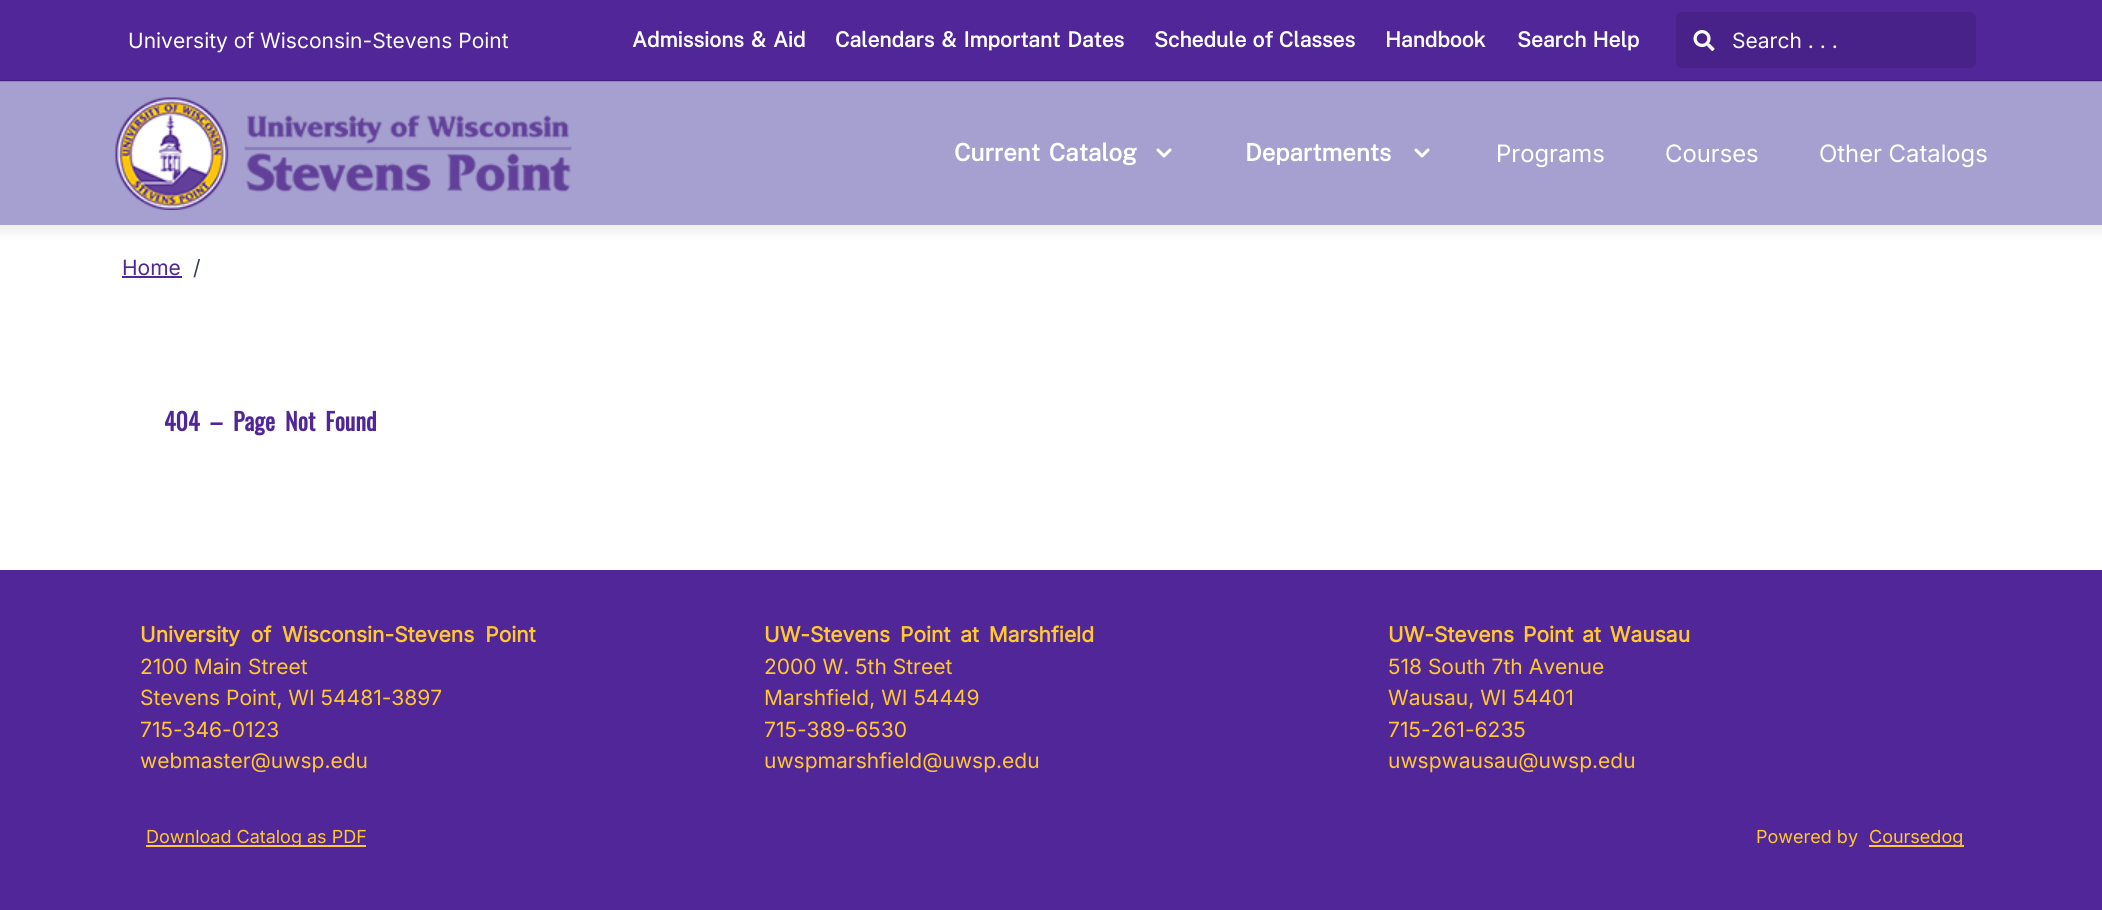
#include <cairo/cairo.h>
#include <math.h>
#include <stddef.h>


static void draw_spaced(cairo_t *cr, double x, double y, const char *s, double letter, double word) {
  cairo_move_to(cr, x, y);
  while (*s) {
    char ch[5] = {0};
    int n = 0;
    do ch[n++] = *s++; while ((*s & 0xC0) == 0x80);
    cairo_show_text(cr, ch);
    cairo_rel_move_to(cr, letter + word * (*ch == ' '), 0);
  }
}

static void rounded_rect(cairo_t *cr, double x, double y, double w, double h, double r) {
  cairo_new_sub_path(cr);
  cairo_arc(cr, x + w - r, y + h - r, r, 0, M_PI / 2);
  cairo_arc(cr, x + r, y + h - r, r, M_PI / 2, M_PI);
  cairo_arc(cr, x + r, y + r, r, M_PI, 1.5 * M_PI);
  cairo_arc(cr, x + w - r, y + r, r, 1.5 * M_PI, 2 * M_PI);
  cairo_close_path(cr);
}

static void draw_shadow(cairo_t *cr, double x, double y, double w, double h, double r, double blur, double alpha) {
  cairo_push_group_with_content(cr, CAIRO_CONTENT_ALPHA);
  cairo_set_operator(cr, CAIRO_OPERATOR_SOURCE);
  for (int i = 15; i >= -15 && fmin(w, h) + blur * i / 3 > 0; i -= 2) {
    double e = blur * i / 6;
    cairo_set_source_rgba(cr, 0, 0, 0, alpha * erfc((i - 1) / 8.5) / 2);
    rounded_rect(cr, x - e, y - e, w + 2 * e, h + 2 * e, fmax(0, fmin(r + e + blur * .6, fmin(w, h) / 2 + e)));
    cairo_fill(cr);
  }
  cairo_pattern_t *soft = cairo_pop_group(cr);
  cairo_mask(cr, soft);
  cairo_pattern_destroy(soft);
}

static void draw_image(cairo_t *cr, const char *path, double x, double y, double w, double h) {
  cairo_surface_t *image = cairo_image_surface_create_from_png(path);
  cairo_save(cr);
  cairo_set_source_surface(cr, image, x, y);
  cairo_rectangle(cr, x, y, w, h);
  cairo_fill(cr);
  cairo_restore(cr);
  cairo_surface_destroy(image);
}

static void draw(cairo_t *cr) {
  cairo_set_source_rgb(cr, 1, 1, 1);
  cairo_paint(cr);
  cairo_set_source_rgb(cr, 0, 0, 0);
  draw_shadow(cr, -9, -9, 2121, 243, 0, 4.5, 0.06);
  cairo_set_source_rgb(cr, 165 / 255.0, 160 / 255.0, 207 / 255.0);
  cairo_rectangle(cr, 0, 82, 2102, 143);
  cairo_fill(cr);
  cairo_set_source_rgb(cr, 140 / 255.0, 136 / 255.0, 176 / 255.0);
  cairo_rectangle(cr, 0, 81, 2102, 1);
  cairo_fill(cr);
  cairo_set_source_rgb(cr, 81 / 255.0, 38 / 255.0, 152 / 255.0);
  cairo_rectangle(cr, 0, 0, 2102, 80);
  cairo_fill(cr);
  cairo_set_source_rgb(cr, 69 / 255.0, 32 / 255.0, 129 / 255.0);
  cairo_rectangle(cr, 0, 80, 2102, 1);
  cairo_fill(cr);
  cairo_set_source_rgb(cr, 73 / 255.0, 34 / 255.0, 137 / 255.0);
  rounded_rect(cr, 1676, 12, 300, 56, 6);
  cairo_fill(cr);
  draw_image(cr, "images/1.png", 1693, 30, 22, 21);
  draw_image(cr, "images/2.png", 115, 97, 457, 113);
  draw_image(cr, "images/3.png", 1156, 148, 16, 10);
  draw_image(cr, "images/3.png", 1414, 148, 16, 10);
  cairo_set_source_rgb(cr, 81 / 255.0, 38 / 255.0, 152 / 255.0);
  cairo_rectangle(cr, 122, 276, 60, 2);
  cairo_fill(cr);
  cairo_rectangle(cr, 0, 570, 2102, 340);
  cairo_fill(cr);
  cairo_set_source_rgb(cr, 1, 200 / 255.0, 46 / 255.0);
  cairo_rectangle(cr, 146, 845, 220, 2);
  cairo_fill(cr);
  cairo_rectangle(cr, 1869, 845, 95, 2);
  cairo_fill(cr);
  cairo_select_font_face(cr, "Inter", CAIRO_FONT_SLANT_NORMAL, CAIRO_FONT_WEIGHT_NORMAL);
  cairo_set_font_size(cr, 21);
  cairo_set_source_rgb(cr, 1, 1, 1);
  cairo_move_to(cr, 128, 48);
  cairo_show_text(cr, "University of Wisconsin-Stevens Point");
  cairo_select_font_face(cr, "Public Sans", CAIRO_FONT_SLANT_NORMAL, CAIRO_FONT_WEIGHT_BOLD);
  draw_spaced(cr, 632, 47, "Admissions & Aid", 0, 2);
  draw_spaced(cr, 835, 47, "Calendars & Important Dates", 0, 2);
  draw_spaced(cr, 1154, 47, "Schedule of Classes", 0, 1);
  cairo_move_to(cr, 1385, 47);
  cairo_show_text(cr, "Handbook");
  draw_spaced(cr, 1517, 47, "Search Help", 0, 1);
  cairo_select_font_face(cr, "Inter", CAIRO_FONT_SLANT_NORMAL, CAIRO_FONT_WEIGHT_NORMAL);
  cairo_move_to(cr, 1732, 48);
  cairo_show_text(cr, "Search . . .");
  cairo_select_font_face(cr, "Public Sans", CAIRO_FONT_SLANT_NORMAL, CAIRO_FONT_WEIGHT_BOLD);
  cairo_set_font_size(cr, 24);
  draw_spaced(cr, 954, 161, "Current Catalog", 0, 3);
  cairo_move_to(cr, 1245, 161);
  cairo_show_text(cr, "Departments");
  cairo_select_font_face(cr, "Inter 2", CAIRO_FONT_SLANT_NORMAL, CAIRO_FONT_WEIGHT_NORMAL);
  cairo_move_to(cr, 1496, 162);
  cairo_show_text(cr, "Programs");
  cairo_move_to(cr, 1665, 162);
  cairo_show_text(cr, "Courses");
  cairo_move_to(cr, 1819, 162);
  cairo_show_text(cr, "Other Catalogs");
  cairo_select_font_face(cr, "Inter", CAIRO_FONT_SLANT_NORMAL, CAIRO_FONT_WEIGHT_NORMAL);
  cairo_set_font_size(cr, 21);
  cairo_set_source_rgb(cr, 81 / 255.0, 38 / 255.0, 152 / 255.0);
  cairo_move_to(cr, 122, 275);
  cairo_show_text(cr, "Home");
  cairo_set_source_rgb(cr, 55 / 255.0, 65 / 255.0, 81 / 255.0);
  cairo_move_to(cr, 193, 275);
  cairo_show_text(cr, "/");
  cairo_select_font_face(cr, "Oswald", CAIRO_FONT_SLANT_NORMAL, CAIRO_FONT_WEIGHT_BOLD);
  cairo_set_font_size(cr, 24);
  cairo_set_source_rgb(cr, 81 / 255.0, 38 / 255.0, 152 / 255.0);
  draw_spaced(cr, 164, 431, "404 – Page Not Found", 0, 4.5);
  cairo_select_font_face(cr, "Inter", CAIRO_FONT_SLANT_NORMAL, CAIRO_FONT_WEIGHT_BOLD);
  cairo_set_font_size(cr, 21);
  cairo_set_source_rgb(cr, 1, 200 / 255.0, 46 / 255.0);
  draw_spaced(cr, 140, 642, "University of Wisconsin-Stevens Point", 0, 5);
  cairo_select_font_face(cr, "Inter", CAIRO_FONT_SLANT_NORMAL, CAIRO_FONT_WEIGHT_NORMAL);
  cairo_move_to(cr, 140, 674);
  cairo_show_text(cr, "2100 Main Street");
  cairo_move_to(cr, 140, 705);
  cairo_show_text(cr, "Stevens Point, WI 54481-3897");
  cairo_move_to(cr, 140, 737);
  cairo_show_text(cr, "715-346-0123");
  cairo_move_to(cr, 140, 768);
  cairo_show_text(cr, "webmaster@uwsp.edu");
  cairo_select_font_face(cr, "Inter", CAIRO_FONT_SLANT_NORMAL, CAIRO_FONT_WEIGHT_BOLD);
  draw_spaced(cr, 764, 642, "UW-Stevens Point at Marshfield", 0, 4);
  cairo_select_font_face(cr, "Inter", CAIRO_FONT_SLANT_NORMAL, CAIRO_FONT_WEIGHT_NORMAL);
  cairo_move_to(cr, 764, 674);
  cairo_show_text(cr, "2000 W. 5th Street");
  cairo_move_to(cr, 764, 705);
  cairo_show_text(cr, "Marshfield, WI 54449");
  cairo_move_to(cr, 764, 737);
  cairo_show_text(cr, "715-389-6530");
  cairo_move_to(cr, 764, 768);
  cairo_show_text(cr, "uwspmarshfield@uwsp.edu");
  cairo_select_font_face(cr, "Inter", CAIRO_FONT_SLANT_NORMAL, CAIRO_FONT_WEIGHT_BOLD);
  draw_spaced(cr, 1388, 642, "UW-Stevens Point at Wausau", 0, 3);
  cairo_select_font_face(cr, "Inter", CAIRO_FONT_SLANT_NORMAL, CAIRO_FONT_WEIGHT_NORMAL);
  cairo_move_to(cr, 1388, 674);
  cairo_show_text(cr, "518 South 7th Avenue");
  cairo_move_to(cr, 1388, 705);
  cairo_show_text(cr, "Wausau, WI 54401");
  cairo_move_to(cr, 1388, 737);
  cairo_show_text(cr, "715-261-6235");
  cairo_move_to(cr, 1388, 768);
  cairo_show_text(cr, "uwspwausau@uwsp.edu");
  cairo_set_font_size(cr, 18);
  cairo_move_to(cr, 146, 843);
  cairo_show_text(cr, "Download Catalog as PDF");
  cairo_move_to(cr, 1756, 843);
  cairo_show_text(cr, "Powered by");
  cairo_move_to(cr, 1869, 843);
  cairo_show_text(cr, "Coursedog");
}

int main(void) {
  cairo_surface_t *surface = cairo_image_surface_create(CAIRO_FORMAT_RGB24, 2102, 910);
  cairo_t *cr = cairo_create(surface);
  cairo_font_options_t *options = cairo_font_options_create();
  cairo_font_options_set_hint_metrics(options, CAIRO_HINT_METRICS_OFF);
  cairo_font_options_set_hint_style(options, CAIRO_HINT_STYLE_NONE);
  cairo_set_font_options(cr, options);
  cairo_set_miter_limit(cr, 4);
  draw(cr);
  cairo_surface_write_to_png(surface, "out.png");
  cairo_font_options_destroy(options);
  cairo_destroy(cr);
  cairo_surface_destroy(surface);
  return 0;
}
